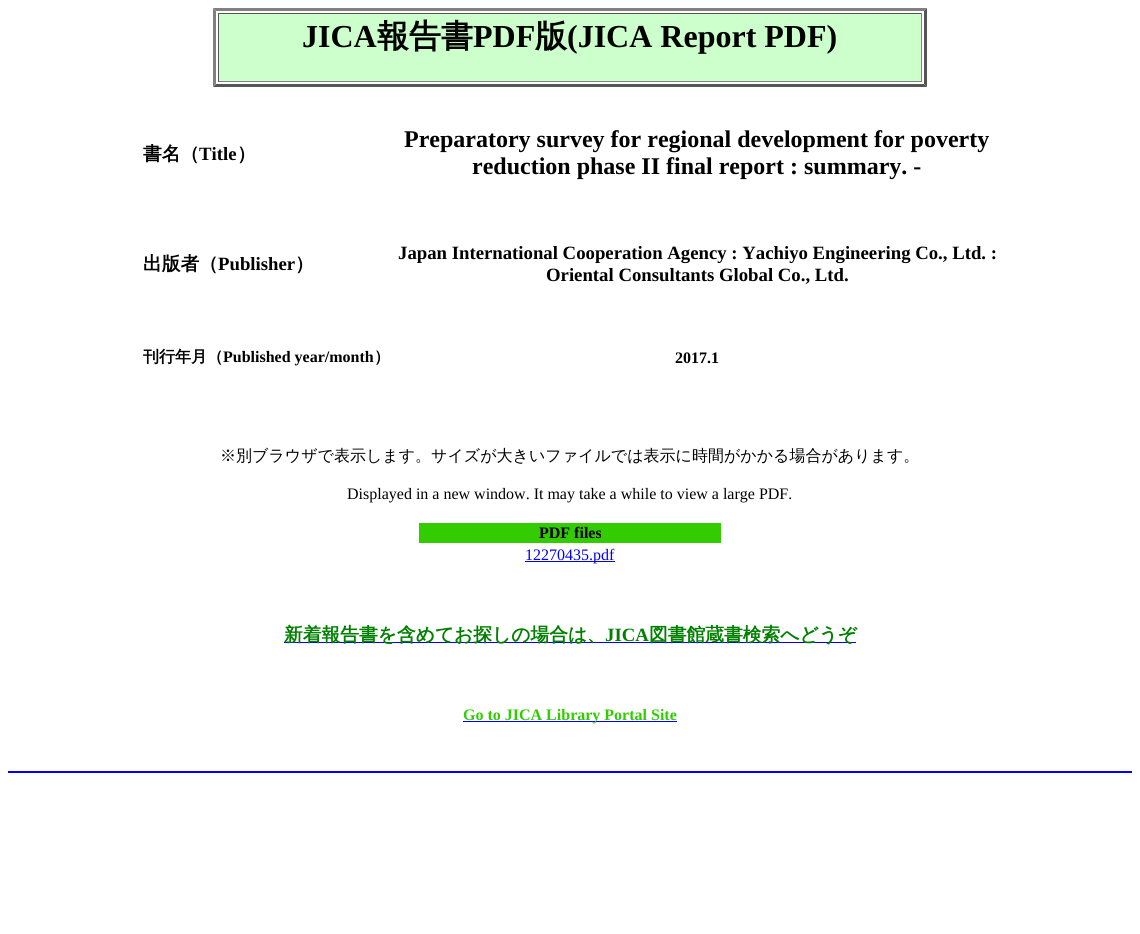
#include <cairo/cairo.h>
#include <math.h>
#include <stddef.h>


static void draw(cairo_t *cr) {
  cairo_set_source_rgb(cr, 1, 1, 1);
  cairo_paint(cr);
  cairo_set_source_rgb(cr, 128 / 255.0, 128 / 255.0, 128 / 255.0);
  cairo_new_path(cr);
  cairo_move_to(cr, 213, 8);
  cairo_line_to(cr, 927, 8);
  cairo_line_to(cr, 924, 11);
  cairo_line_to(cr, 216, 11);
  cairo_close_path(cr);
  cairo_fill(cr);
  cairo_set_source_rgb(cr, 85 / 255.0, 85 / 255.0, 85 / 255.0);
  cairo_new_path(cr);
  cairo_move_to(cr, 927, 8);
  cairo_line_to(cr, 927, 87);
  cairo_line_to(cr, 924, 84);
  cairo_line_to(cr, 924, 11);
  cairo_close_path(cr);
  cairo_fill(cr);
  cairo_new_path(cr);
  cairo_move_to(cr, 927, 87);
  cairo_line_to(cr, 213, 87);
  cairo_line_to(cr, 216, 84);
  cairo_line_to(cr, 924, 84);
  cairo_close_path(cr);
  cairo_fill(cr);
  cairo_set_source_rgb(cr, 128 / 255.0, 128 / 255.0, 128 / 255.0);
  cairo_new_path(cr);
  cairo_move_to(cr, 213, 87);
  cairo_line_to(cr, 213, 8);
  cairo_line_to(cr, 216, 11);
  cairo_line_to(cr, 216, 84);
  cairo_close_path(cr);
  cairo_fill(cr);
  cairo_set_source_rgb(cr, 204 / 255.0, 1, 204 / 255.0);
  cairo_rectangle(cr, 219, 14, 702, 67);
  cairo_fill(cr);
  cairo_set_source_rgb(cr, 85 / 255.0, 85 / 255.0, 85 / 255.0);
  cairo_rectangle(cr, 218, 13, 704, 1);
  cairo_fill(cr);
  cairo_set_source_rgb(cr, 128 / 255.0, 128 / 255.0, 128 / 255.0);
  cairo_rectangle(cr, 921, 13, 1, 69);
  cairo_fill(cr);
  cairo_rectangle(cr, 218, 81, 704, 1);
  cairo_fill(cr);
  cairo_set_source_rgb(cr, 85 / 255.0, 85 / 255.0, 85 / 255.0);
  cairo_rectangle(cr, 218, 13, 1, 69);
  cairo_fill(cr);
  cairo_set_source_rgb(cr, 51 / 255.0, 204 / 255.0, 0);
  cairo_rectangle(cr, 419, 523, 302, 20);
  cairo_fill(cr);
  cairo_set_source_rgb(cr, 0, 0, 238 / 255.0);
  cairo_rectangle(cr, 525, 561, 90, 1);
  cairo_fill(cr);
  cairo_rectangle(cr, 284, 642, 572, 1);
  cairo_fill(cr);
  cairo_rectangle(cr, 463, 721, 214, 1);
  cairo_fill(cr);
  cairo_set_source_rgb(cr, 0, 0, 1);
  cairo_rectangle(cr, 8, 771, 1124, 2);
  cairo_fill(cr);
  cairo_select_font_face(cr, "Liberation Serif", CAIRO_FONT_SLANT_NORMAL, CAIRO_FONT_WEIGHT_BOLD);
  cairo_set_font_size(cr, 32);
  cairo_set_source_rgb(cr, 0, 0, 0);
  cairo_move_to(cr, 302, 47);
  cairo_show_text(cr, "JICA");
  cairo_select_font_face(cr, "WenQuanYi Zen Hei", CAIRO_FONT_SLANT_NORMAL, CAIRO_FONT_WEIGHT_BOLD);
  cairo_move_to(cr, 377, 47);
  cairo_show_text(cr, "報告書");
  cairo_select_font_face(cr, "Liberation Serif", CAIRO_FONT_SLANT_NORMAL, CAIRO_FONT_WEIGHT_BOLD);
  cairo_move_to(cr, 473, 47);
  cairo_show_text(cr, "PDF");
  cairo_select_font_face(cr, "WenQuanYi Zen Hei", CAIRO_FONT_SLANT_NORMAL, CAIRO_FONT_WEIGHT_BOLD);
  cairo_move_to(cr, 535, 47);
  cairo_show_text(cr, "版");
  cairo_select_font_face(cr, "Liberation Serif", CAIRO_FONT_SLANT_NORMAL, CAIRO_FONT_WEIGHT_BOLD);
  cairo_move_to(cr, 567, 47);
  cairo_show_text(cr, "(JICA Report PDF)");
  cairo_select_font_face(cr, "WenQuanYi Zen Hei", CAIRO_FONT_SLANT_NORMAL, CAIRO_FONT_WEIGHT_BOLD);
  cairo_set_font_size(cr, 18.75);
  cairo_move_to(cr, 143, 160);
  cairo_show_text(cr, "書名（");
  cairo_select_font_face(cr, "Liberation Serif", CAIRO_FONT_SLANT_NORMAL, CAIRO_FONT_WEIGHT_BOLD);
  cairo_move_to(cr, 199, 160);
  cairo_show_text(cr, "Title");
  cairo_select_font_face(cr, "WenQuanYi Zen Hei", CAIRO_FONT_SLANT_NORMAL, CAIRO_FONT_WEIGHT_BOLD);
  cairo_move_to(cr, 237, 160);
  cairo_show_text(cr, "）");
  cairo_select_font_face(cr, "Liberation Serif", CAIRO_FONT_SLANT_NORMAL, CAIRO_FONT_WEIGHT_BOLD);
  cairo_set_font_size(cr, 24);
  cairo_move_to(cr, 404, 147);
  cairo_show_text(cr, "Preparatory survey for regional development for poverty");
  cairo_move_to(cr, 472, 174);
  cairo_show_text(cr, "reduction phase II final report : summary. -");
  cairo_select_font_face(cr, "WenQuanYi Zen Hei", CAIRO_FONT_SLANT_NORMAL, CAIRO_FONT_WEIGHT_BOLD);
  cairo_set_font_size(cr, 18.75);
  cairo_move_to(cr, 143, 270);
  cairo_show_text(cr, "出版者（");
  cairo_select_font_face(cr, "Liberation Serif", CAIRO_FONT_SLANT_NORMAL, CAIRO_FONT_WEIGHT_BOLD);
  cairo_move_to(cr, 218, 270);
  cairo_show_text(cr, "Publisher");
  cairo_select_font_face(cr, "WenQuanYi Zen Hei", CAIRO_FONT_SLANT_NORMAL, CAIRO_FONT_WEIGHT_BOLD);
  cairo_move_to(cr, 295, 270);
  cairo_show_text(cr, "）");
  cairo_select_font_face(cr, "Liberation Serif", CAIRO_FONT_SLANT_NORMAL, CAIRO_FONT_WEIGHT_BOLD);
  cairo_move_to(cr, 398, 259);
  cairo_show_text(cr, "Japan International Cooperation Agency : Yachiyo Engineering Co., Ltd. :");
  cairo_move_to(cr, 546, 281);
  cairo_show_text(cr, "Oriental Consultants Global Co., Ltd.");
  cairo_select_font_face(cr, "WenQuanYi Zen Hei", CAIRO_FONT_SLANT_NORMAL, CAIRO_FONT_WEIGHT_BOLD);
  cairo_set_font_size(cr, 16);
  cairo_move_to(cr, 143, 362);
  cairo_show_text(cr, "刊行年月（");
  cairo_select_font_face(cr, "Liberation Serif", CAIRO_FONT_SLANT_NORMAL, CAIRO_FONT_WEIGHT_BOLD);
  cairo_move_to(cr, 223, 362);
  cairo_show_text(cr, "Published year/month");
  cairo_select_font_face(cr, "WenQuanYi Zen Hei", CAIRO_FONT_SLANT_NORMAL, CAIRO_FONT_WEIGHT_BOLD);
  cairo_move_to(cr, 374, 362);
  cairo_show_text(cr, "）");
  cairo_select_font_face(cr, "Liberation Serif", CAIRO_FONT_SLANT_NORMAL, CAIRO_FONT_WEIGHT_BOLD);
  cairo_move_to(cr, 675, 363);
  cairo_show_text(cr, "2017.1");
  cairo_select_font_face(cr, "WenQuanYi Zen Hei Medium", CAIRO_FONT_SLANT_NORMAL, CAIRO_FONT_WEIGHT_NORMAL);
  cairo_move_to(cr, 220, 461);
  cairo_show_text(cr, "※別ブラウザで表示します。サイズが大きいファイルでは表示に時間がかかる場合があります。");
  cairo_select_font_face(cr, "Liberation Serif", CAIRO_FONT_SLANT_NORMAL, CAIRO_FONT_WEIGHT_NORMAL);
  cairo_move_to(cr, 347, 499);
  cairo_show_text(cr, "Displayed in a new window. It may take a while to view a large PDF.");
  cairo_select_font_face(cr, "Liberation Serif", CAIRO_FONT_SLANT_NORMAL, CAIRO_FONT_WEIGHT_BOLD);
  cairo_move_to(cr, 539, 538);
  cairo_show_text(cr, "PDF files");
  cairo_select_font_face(cr, "Liberation Serif", CAIRO_FONT_SLANT_NORMAL, CAIRO_FONT_WEIGHT_NORMAL);
  cairo_set_source_rgb(cr, 0, 0, 238 / 255.0);
  cairo_move_to(cr, 525, 560);
  cairo_show_text(cr, "12270435.pdf");
  cairo_select_font_face(cr, "WenQuanYi Zen Hei", CAIRO_FONT_SLANT_NORMAL, CAIRO_FONT_WEIGHT_BOLD);
  cairo_set_font_size(cr, 18.75);
  cairo_set_source_rgb(cr, 0, 128 / 255.0, 0);
  cairo_move_to(cr, 284, 641);
  cairo_show_text(cr, "新着報告書を含めてお探しの場合は、");
  cairo_select_font_face(cr, "Liberation Serif", CAIRO_FONT_SLANT_NORMAL, CAIRO_FONT_WEIGHT_BOLD);
  cairo_move_to(cr, 605, 641);
  cairo_show_text(cr, "JICA");
  cairo_select_font_face(cr, "WenQuanYi Zen Hei", CAIRO_FONT_SLANT_NORMAL, CAIRO_FONT_WEIGHT_BOLD);
  cairo_move_to(cr, 649, 641);
  cairo_show_text(cr, "図書館蔵書検索へどうぞ");
  cairo_select_font_face(cr, "Liberation Serif", CAIRO_FONT_SLANT_NORMAL, CAIRO_FONT_WEIGHT_BOLD);
  cairo_set_font_size(cr, 16);
  cairo_set_source_rgb(cr, 51 / 255.0, 204 / 255.0, 0);
  cairo_move_to(cr, 463, 720);
  cairo_show_text(cr, "Go to JICA Library Portal Site");
}

int main(void) {
  cairo_surface_t *surface = cairo_image_surface_create(CAIRO_FORMAT_RGB24, 1140, 934);
  cairo_t *cr = cairo_create(surface);
  cairo_font_options_t *options = cairo_font_options_create();
  cairo_font_options_set_hint_metrics(options, CAIRO_HINT_METRICS_OFF);
  cairo_font_options_set_hint_style(options, CAIRO_HINT_STYLE_NONE);
  cairo_set_font_options(cr, options);
  cairo_set_miter_limit(cr, 4);
  draw(cr);
  cairo_surface_write_to_png(surface, "out.png");
  cairo_font_options_destroy(options);
  cairo_destroy(cr);
  cairo_surface_destroy(surface);
  return 0;
}
